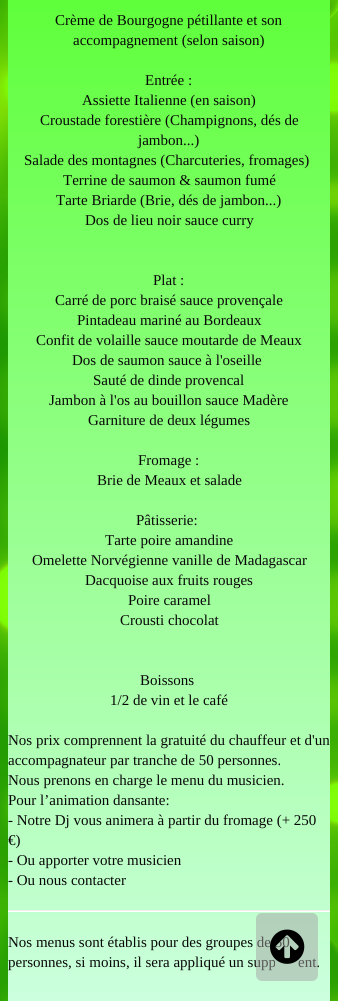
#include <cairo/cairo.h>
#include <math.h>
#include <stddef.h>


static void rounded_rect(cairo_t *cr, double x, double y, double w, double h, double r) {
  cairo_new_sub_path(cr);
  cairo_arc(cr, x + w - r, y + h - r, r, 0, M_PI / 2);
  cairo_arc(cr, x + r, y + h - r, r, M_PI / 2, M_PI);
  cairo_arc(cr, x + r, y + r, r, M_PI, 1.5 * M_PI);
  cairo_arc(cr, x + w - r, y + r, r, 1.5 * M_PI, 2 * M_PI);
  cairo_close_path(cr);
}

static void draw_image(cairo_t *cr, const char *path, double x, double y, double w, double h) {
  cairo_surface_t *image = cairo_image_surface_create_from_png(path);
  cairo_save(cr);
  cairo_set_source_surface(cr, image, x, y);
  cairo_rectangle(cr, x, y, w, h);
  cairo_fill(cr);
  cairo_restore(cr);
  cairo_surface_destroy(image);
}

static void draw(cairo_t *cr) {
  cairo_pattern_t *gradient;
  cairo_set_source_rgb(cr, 1, 1, 1);
  cairo_paint(cr);
  draw_image(cr, "images/1.png", 0, 0, 338, 1001);
  gradient = cairo_pattern_create_linear(169, -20, 169, 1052);
  cairo_pattern_add_color_stop_rgba(gradient, 0, 93 / 255.0, 1, 56 / 255.0, 1);
  cairo_pattern_add_color_stop_rgba(gradient, 1, 209 / 255.0, 1, 230 / 255.0, 1);
  cairo_set_source(cr, gradient);
  cairo_pattern_destroy(gradient);
  cairo_rectangle(cr, 8, 0, 322, 1001);
  cairo_fill(cr);
  cairo_set_source_rgb(cr, 238 / 255.0, 238 / 255.0, 238 / 255.0);
  cairo_rectangle(cr, 8, 910, 322, 1);
  cairo_fill(cr);
  cairo_set_source_rgb(cr, 1, 1, 1);
  cairo_rectangle(cr, 8, 911, 322, 1);
  cairo_fill(cr);
  cairo_select_font_face(cr, "Liberation Serif", CAIRO_FONT_SLANT_NORMAL, CAIRO_FONT_WEIGHT_NORMAL);
  cairo_set_font_size(cr, 15);
  cairo_set_source_rgb(cr, 8 / 255.0, 8 / 255.0, 8 / 255.0);
  cairo_move_to(cr, 55, 25);
  cairo_show_text(cr, "Crème de Bourgogne pétillante et son");
  cairo_move_to(cr, 73, 45);
  cairo_show_text(cr, "accompagnement (selon saison)");
  cairo_move_to(cr, 145, 85);
  cairo_show_text(cr, "Entrée :");
  cairo_move_to(cr, 82, 105);
  cairo_show_text(cr, "Assiette Italienne (en saison)");
  cairo_move_to(cr, 40, 125);
  cairo_show_text(cr, "Croustade forestière (Champignons, dés de");
  cairo_move_to(cr, 138, 145);
  cairo_show_text(cr, "jambon...)");
  cairo_move_to(cr, 24, 165);
  cairo_show_text(cr, "Salade des montagnes (Charcuteries, fromages)");
  cairo_move_to(cr, 63, 185);
  cairo_show_text(cr, "Terrine de saumon & saumon fumé");
  cairo_move_to(cr, 56, 205);
  cairo_show_text(cr, "Tarte Briarde (Brie, dés de jambon...)");
  cairo_move_to(cr, 85, 225);
  cairo_show_text(cr, "Dos de lieu noir sauce curry");
  cairo_move_to(cr, 153, 285);
  cairo_show_text(cr, "Plat :");
  cairo_move_to(cr, 55, 305);
  cairo_show_text(cr, "Carré de porc braisé sauce provençale");
  cairo_move_to(cr, 77, 325);
  cairo_show_text(cr, "Pintadeau mariné au Bordeaux");
  cairo_move_to(cr, 36, 345);
  cairo_show_text(cr, "Confit de volaille sauce moutarde de Meaux");
  cairo_move_to(cr, 72, 365);
  cairo_show_text(cr, "Dos de saumon sauce à l'oseille");
  cairo_move_to(cr, 93, 385);
  cairo_show_text(cr, "Sauté de dinde provencal");
  cairo_move_to(cr, 49, 405);
  cairo_show_text(cr, "Jambon à l'os au bouillon sauce Madère");
  cairo_move_to(cr, 88, 425);
  cairo_show_text(cr, "Garniture de deux légumes");
  cairo_move_to(cr, 138, 465);
  cairo_show_text(cr, "Fromage :");
  cairo_move_to(cr, 97, 485);
  cairo_show_text(cr, "Brie de Meaux et salade");
  cairo_move_to(cr, 136, 525);
  cairo_show_text(cr, "Pâtisserie:");
  cairo_move_to(cr, 105, 545);
  cairo_show_text(cr, "Tarte poire amandine");
  cairo_move_to(cr, 32, 565);
  cairo_show_text(cr, "Omelette Norvégienne vanille de Madagascar");
  cairo_move_to(cr, 85, 585);
  cairo_show_text(cr, "Dacquoise aux fruits rouges");
  cairo_move_to(cr, 128, 605);
  cairo_show_text(cr, "Poire caramel");
  cairo_move_to(cr, 120, 625);
  cairo_show_text(cr, "Crousti chocolat");
  cairo_move_to(cr, 140, 685);
  cairo_show_text(cr, "Boissons");
  cairo_move_to(cr, 110, 705);
  cairo_show_text(cr, "1/2 de vin et le café");
  cairo_move_to(cr, 8, 745);
  cairo_show_text(cr, "Nos prix comprennent la gratuité du chauffeur et d'un");
  cairo_move_to(cr, 8, 765);
  cairo_show_text(cr, "accompagnateur par tranche de 50 personnes.");
  cairo_move_to(cr, 8, 785);
  cairo_show_text(cr, "Nous prenons en charge le menu du musicien.");
  cairo_move_to(cr, 8, 805);
  cairo_show_text(cr, "Pour l’animation dansante:");
  cairo_move_to(cr, 8, 825);
  cairo_show_text(cr, "- Notre Dj vous animera à partir du fromage (+ 250");
  cairo_move_to(cr, 8, 845);
  cairo_show_text(cr, "€)");
  cairo_move_to(cr, 8, 865);
  cairo_show_text(cr, "- Ou apporter votre musicien");
  cairo_move_to(cr, 8, 885);
  cairo_show_text(cr, "- Ou nous contacter");
  cairo_move_to(cr, 8, 947);
  cairo_show_text(cr, "Nos menus sont établis pour des groupes de 50");
  cairo_move_to(cr, 8, 967);
  cairo_show_text(cr, "personnes, si moins, il sera appliqué un supp");
  cairo_move_to(cr, 298, 967);
  cairo_show_text(cr, "ent.");
  cairo_set_source_rgba(cr, 165 / 255.0, 165 / 255.0, 165 / 255.0, 0.5);
  rounded_rect(cr, 256, 913, 62, 68, 6);
  cairo_fill(cr);
  draw_image(cr, "images/2.png", 270, 929, 35, 35);
}

int main(void) {
  cairo_surface_t *surface = cairo_image_surface_create(CAIRO_FORMAT_RGB24, 338, 1001);
  cairo_t *cr = cairo_create(surface);
  cairo_font_options_t *options = cairo_font_options_create();
  cairo_font_options_set_hint_metrics(options, CAIRO_HINT_METRICS_OFF);
  cairo_font_options_set_hint_style(options, CAIRO_HINT_STYLE_NONE);
  cairo_set_font_options(cr, options);
  cairo_set_miter_limit(cr, 4);
  draw(cr);
  cairo_surface_write_to_png(surface, "out.png");
  cairo_font_options_destroy(options);
  cairo_destroy(cr);
  cairo_surface_destroy(surface);
  return 0;
}
